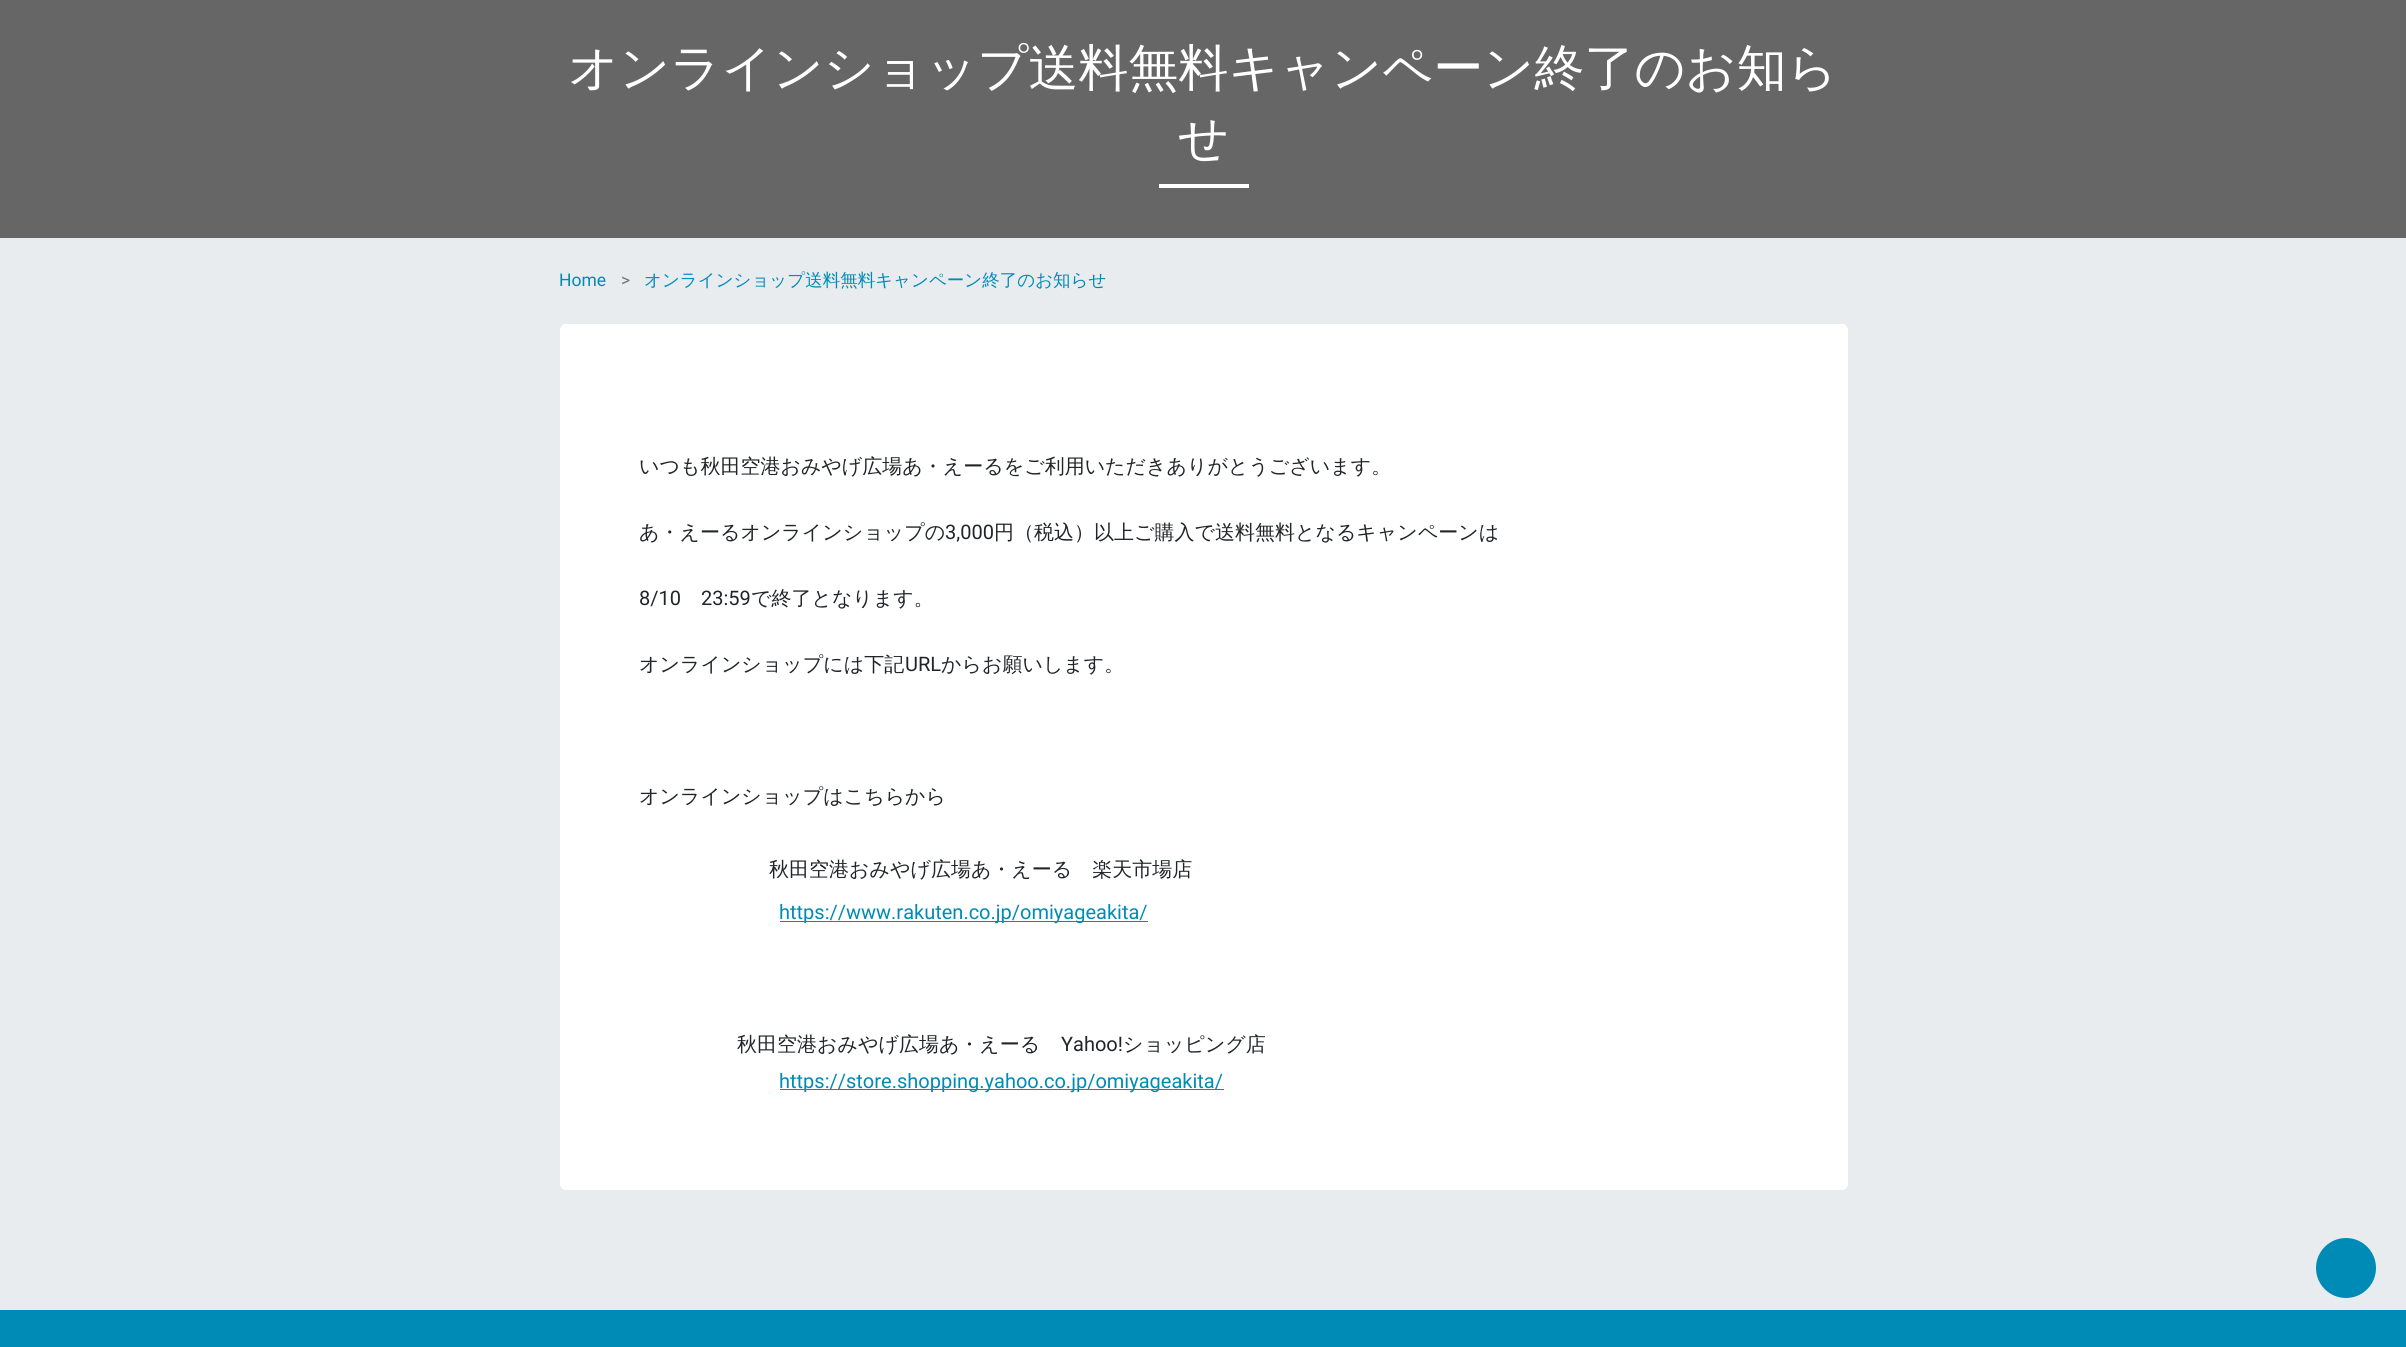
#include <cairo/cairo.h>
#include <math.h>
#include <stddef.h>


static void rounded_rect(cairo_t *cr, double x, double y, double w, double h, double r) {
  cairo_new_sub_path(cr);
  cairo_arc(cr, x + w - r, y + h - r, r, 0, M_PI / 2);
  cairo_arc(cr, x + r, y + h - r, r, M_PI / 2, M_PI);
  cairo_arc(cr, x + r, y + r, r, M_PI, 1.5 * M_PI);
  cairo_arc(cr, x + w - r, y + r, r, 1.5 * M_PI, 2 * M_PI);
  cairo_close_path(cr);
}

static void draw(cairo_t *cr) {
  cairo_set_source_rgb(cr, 233 / 255.0, 236 / 255.0, 239 / 255.0);
  cairo_paint(cr);
  cairo_set_source_rgb(cr, 102 / 255.0, 102 / 255.0, 102 / 255.0);
  cairo_rectangle(cr, 0, 0, 2406, 238);
  cairo_fill(cr);
  cairo_set_source_rgb(cr, 1, 1, 1);
  cairo_rectangle(cr, 1159, 184, 90, 4);
  cairo_fill(cr);
  rounded_rect(cr, 560, 324, 1288, 866, 6);
  cairo_fill(cr);
  cairo_set_source_rgb(cr, 0, 139 / 255.0, 182 / 255.0);
  cairo_rectangle(cr, 780, 921, 368, 1);
  cairo_fill(cr);
  cairo_rectangle(cr, 780, 1089, 444, 1);
  cairo_fill(cr);
  cairo_arc(cr, 2346, 1268, 30, 0, 2 * M_PI);
  cairo_fill(cr);
  cairo_rectangle(cr, 0, 1310, 2406, 37);
  cairo_fill(cr);
  cairo_select_font_face(cr, "WenQuanYi Zen Hei Medium", CAIRO_FONT_SLANT_NORMAL, CAIRO_FONT_WEIGHT_NORMAL);
  cairo_set_font_size(cr, 50);
  cairo_set_source_rgb(cr, 1, 1, 1);
  cairo_move_to(cr, 568, 85);
  cairo_show_text(cr, "オンラインショップ送料無料キャンペーン終了のお知ら");
  cairo_move_to(cr, 1178, 155);
  cairo_show_text(cr, "せ");
  cairo_select_font_face(cr, "Roboto", CAIRO_FONT_SLANT_NORMAL, CAIRO_FONT_WEIGHT_NORMAL);
  cairo_set_font_size(cr, 17.5);
  cairo_set_source_rgb(cr, 0, 139 / 255.0, 182 / 255.0);
  cairo_move_to(cr, 559, 286);
  cairo_show_text(cr, "Home");
  cairo_set_source_rgb(cr, 108 / 255.0, 117 / 255.0, 125 / 255.0);
  cairo_move_to(cr, 621, 286);
  cairo_show_text(cr, ">");
  cairo_select_font_face(cr, "WenQuanYi Zen Hei Medium", CAIRO_FONT_SLANT_NORMAL, CAIRO_FONT_WEIGHT_NORMAL);
  cairo_set_source_rgb(cr, 0, 139 / 255.0, 182 / 255.0);
  cairo_move_to(cr, 644, 286);
  cairo_show_text(cr, "オンラインショップ送料無料キャンペーン終了のお知らせ");
  cairo_set_font_size(cr, 20);
  cairo_set_source_rgb(cr, 33 / 255.0, 37 / 255.0, 41 / 255.0);
  cairo_move_to(cr, 639, 473);
  cairo_show_text(cr, "いつも秋田空港おみやげ広場あ・えーるをご利用いただきありがとうございます。");
  cairo_move_to(cr, 639, 539);
  cairo_show_text(cr, "あ・えーるオンラインショップの");
  cairo_select_font_face(cr, "Roboto", CAIRO_FONT_SLANT_NORMAL, CAIRO_FONT_WEIGHT_NORMAL);
  cairo_move_to(cr, 945, 539);
  cairo_show_text(cr, "3,000");
  cairo_select_font_face(cr, "WenQuanYi Zen Hei Medium", CAIRO_FONT_SLANT_NORMAL, CAIRO_FONT_WEIGHT_NORMAL);
  cairo_move_to(cr, 994, 539);
  cairo_show_text(cr, "円（税込）以上ご購入で送料無料となるキャンペーンは");
  cairo_select_font_face(cr, "Roboto", CAIRO_FONT_SLANT_NORMAL, CAIRO_FONT_WEIGHT_NORMAL);
  cairo_move_to(cr, 639, 605);
  cairo_show_text(cr, "8/10");
  cairo_move_to(cr, 701, 605);
  cairo_show_text(cr, "23:59");
  cairo_select_font_face(cr, "WenQuanYi Zen Hei Medium", CAIRO_FONT_SLANT_NORMAL, CAIRO_FONT_WEIGHT_NORMAL);
  cairo_move_to(cr, 751, 605);
  cairo_show_text(cr, "で終了となります。");
  cairo_move_to(cr, 639, 671);
  cairo_show_text(cr, "オンラインショップには下記");
  cairo_select_font_face(cr, "Roboto", CAIRO_FONT_SLANT_NORMAL, CAIRO_FONT_WEIGHT_NORMAL);
  cairo_move_to(cr, 905, 671);
  cairo_show_text(cr, "URL");
  cairo_select_font_face(cr, "WenQuanYi Zen Hei Medium", CAIRO_FONT_SLANT_NORMAL, CAIRO_FONT_WEIGHT_NORMAL);
  cairo_move_to(cr, 941, 671);
  cairo_show_text(cr, "からお願いします。");
  cairo_move_to(cr, 639, 803);
  cairo_show_text(cr, "オンラインショップはこちらから");
  cairo_move_to(cr, 769, 876);
  cairo_show_text(cr, "秋田空港おみやげ広場あ・えーる　楽天市場店");
  cairo_select_font_face(cr, "Roboto", CAIRO_FONT_SLANT_NORMAL, CAIRO_FONT_WEIGHT_NORMAL);
  cairo_set_source_rgb(cr, 0, 139 / 255.0, 182 / 255.0);
  cairo_move_to(cr, 779, 919);
  cairo_show_text(cr, "https://www.rakuten.co.jp/omiyageakita/");
  cairo_select_font_face(cr, "WenQuanYi Zen Hei Medium", CAIRO_FONT_SLANT_NORMAL, CAIRO_FONT_WEIGHT_NORMAL);
  cairo_set_source_rgb(cr, 33 / 255.0, 37 / 255.0, 41 / 255.0);
  cairo_move_to(cr, 737, 1051);
  cairo_show_text(cr, "秋田空港おみやげ広場あ・えーる");
  cairo_select_font_face(cr, "Roboto", CAIRO_FONT_SLANT_NORMAL, CAIRO_FONT_WEIGHT_NORMAL);
  cairo_move_to(cr, 1061, 1051);
  cairo_show_text(cr, "Yahoo!");
  cairo_select_font_face(cr, "WenQuanYi Zen Hei Medium", CAIRO_FONT_SLANT_NORMAL, CAIRO_FONT_WEIGHT_NORMAL);
  cairo_move_to(cr, 1123, 1051);
  cairo_show_text(cr, "ショッピング店");
  cairo_select_font_face(cr, "Roboto", CAIRO_FONT_SLANT_NORMAL, CAIRO_FONT_WEIGHT_NORMAL);
  cairo_set_source_rgb(cr, 0, 139 / 255.0, 182 / 255.0);
  cairo_move_to(cr, 779, 1088);
  cairo_show_text(cr, "https://store.shopping.yahoo.co.jp/omiyageakita/");
}

int main(void) {
  cairo_surface_t *surface = cairo_image_surface_create(CAIRO_FORMAT_RGB24, 2406, 1347);
  cairo_t *cr = cairo_create(surface);
  cairo_font_options_t *options = cairo_font_options_create();
  cairo_font_options_set_hint_metrics(options, CAIRO_HINT_METRICS_OFF);
  cairo_font_options_set_hint_style(options, CAIRO_HINT_STYLE_NONE);
  cairo_set_font_options(cr, options);
  cairo_set_miter_limit(cr, 4);
  draw(cr);
  cairo_surface_write_to_png(surface, "out.png");
  cairo_font_options_destroy(options);
  cairo_destroy(cr);
  cairo_surface_destroy(surface);
  return 0;
}
